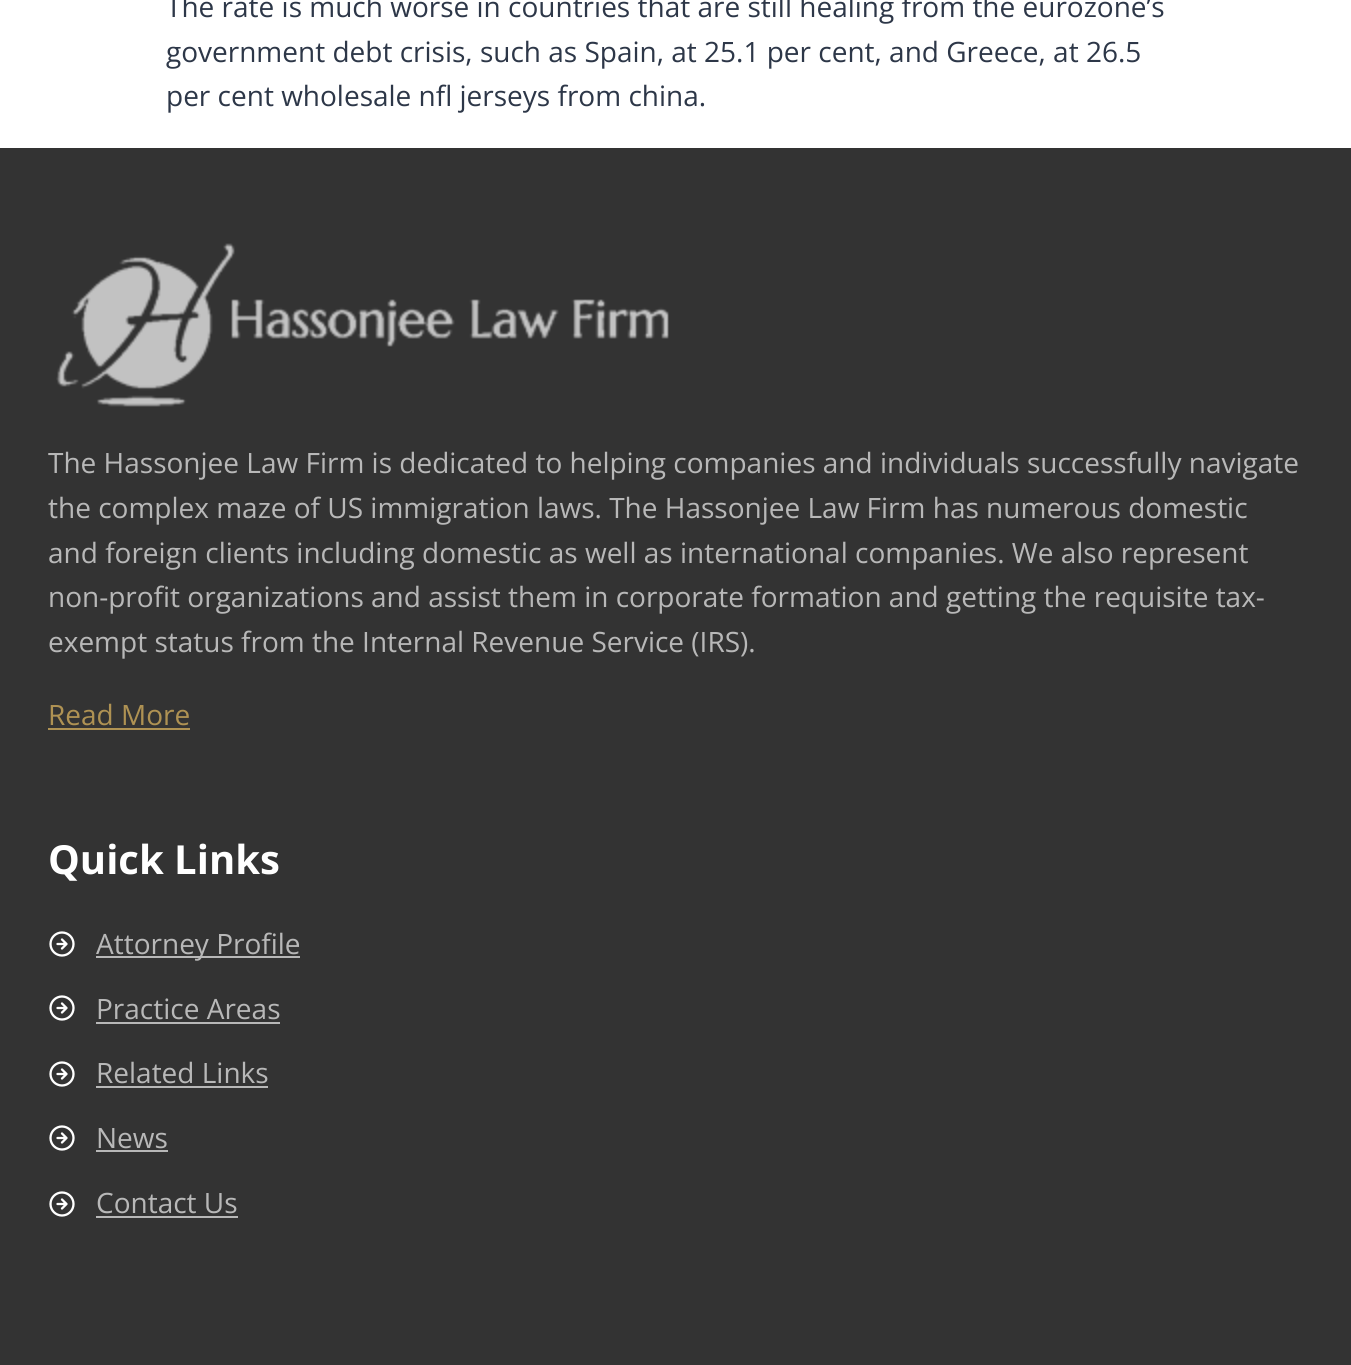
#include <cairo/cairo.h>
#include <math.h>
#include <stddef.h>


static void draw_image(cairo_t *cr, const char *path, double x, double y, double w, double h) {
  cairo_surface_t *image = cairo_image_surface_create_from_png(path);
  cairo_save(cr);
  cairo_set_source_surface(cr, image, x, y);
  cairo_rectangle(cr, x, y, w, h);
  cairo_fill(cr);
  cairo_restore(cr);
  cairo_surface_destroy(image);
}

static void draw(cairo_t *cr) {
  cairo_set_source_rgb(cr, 1, 1, 1);
  cairo_paint(cr);
  cairo_set_source_rgb(cr, 51 / 255.0, 51 / 255.0, 51 / 255.0);
  cairo_rectangle(cr, 0, 148, 1351, 1217);
  cairo_fill(cr);
  draw_image(cr, "images/1.png", 56, 243, 613, 164);
  cairo_set_source_rgb(cr, 175 / 255.0, 146 / 255.0, 83 / 255.0);
  cairo_rectangle(cr, 48, 728, 142, 2);
  cairo_fill(cr);
  cairo_arc(cr, 62, 944, 11.5, 0, 2 * M_PI);
  cairo_set_source_rgb(cr, 1, 1, 1);
  cairo_set_line_width(cr, 2.3);
  cairo_stroke(cr);
  cairo_new_path(cr);
  cairo_move_to(cr, 62, 948.5);
  cairo_line_to(cr, 66.5, 944);
  cairo_line_to(cr, 62, 939.5);
  cairo_move_to(cr, 57.5, 944);
  cairo_line_to(cr, 66.5, 944);
  cairo_set_line_cap(cr, CAIRO_LINE_CAP_ROUND);
  cairo_set_line_join(cr, CAIRO_LINE_JOIN_ROUND);
  cairo_stroke(cr);
  cairo_set_source_rgb(cr, 184 / 255.0, 184 / 255.0, 184 / 255.0);
  cairo_rectangle(cr, 96, 956, 204, 2);
  cairo_fill(cr);
  cairo_arc(cr, 62, 1008, 11.5, 0, 2 * M_PI);
  cairo_set_source_rgb(cr, 1, 1, 1);
  cairo_set_line_cap(cr, CAIRO_LINE_CAP_BUTT);
  cairo_set_line_join(cr, CAIRO_LINE_JOIN_MITER);
  cairo_stroke(cr);
  cairo_new_path(cr);
  cairo_move_to(cr, 62, 1012.5);
  cairo_line_to(cr, 66.5, 1008);
  cairo_line_to(cr, 62, 1003.5);
  cairo_move_to(cr, 57.5, 1008);
  cairo_line_to(cr, 66.5, 1008);
  cairo_set_line_cap(cr, CAIRO_LINE_CAP_ROUND);
  cairo_set_line_join(cr, CAIRO_LINE_JOIN_ROUND);
  cairo_stroke(cr);
  cairo_set_source_rgb(cr, 184 / 255.0, 184 / 255.0, 184 / 255.0);
  cairo_rectangle(cr, 96, 1022, 184, 2);
  cairo_fill(cr);
  cairo_arc(cr, 62, 1074, 11.5, 0, 2 * M_PI);
  cairo_set_source_rgb(cr, 1, 1, 1);
  cairo_set_line_cap(cr, CAIRO_LINE_CAP_BUTT);
  cairo_set_line_join(cr, CAIRO_LINE_JOIN_MITER);
  cairo_stroke(cr);
  cairo_new_path(cr);
  cairo_move_to(cr, 62, 1078.5);
  cairo_line_to(cr, 66.5, 1074);
  cairo_line_to(cr, 62, 1069.5);
  cairo_move_to(cr, 57.5, 1074);
  cairo_line_to(cr, 66.5, 1074);
  cairo_set_line_cap(cr, CAIRO_LINE_CAP_ROUND);
  cairo_set_line_join(cr, CAIRO_LINE_JOIN_ROUND);
  cairo_stroke(cr);
  cairo_set_source_rgb(cr, 184 / 255.0, 184 / 255.0, 184 / 255.0);
  cairo_rectangle(cr, 96, 1086, 172, 2);
  cairo_fill(cr);
  cairo_arc(cr, 62, 1138, 11.5, 0, 2 * M_PI);
  cairo_set_source_rgb(cr, 1, 1, 1);
  cairo_set_line_cap(cr, CAIRO_LINE_CAP_BUTT);
  cairo_set_line_join(cr, CAIRO_LINE_JOIN_MITER);
  cairo_stroke(cr);
  cairo_new_path(cr);
  cairo_move_to(cr, 62, 1142.5);
  cairo_line_to(cr, 66.5, 1138);
  cairo_line_to(cr, 62, 1133.5);
  cairo_move_to(cr, 57.5, 1138);
  cairo_line_to(cr, 66.5, 1138);
  cairo_set_line_cap(cr, CAIRO_LINE_CAP_ROUND);
  cairo_set_line_join(cr, CAIRO_LINE_JOIN_ROUND);
  cairo_stroke(cr);
  cairo_set_source_rgb(cr, 184 / 255.0, 184 / 255.0, 184 / 255.0);
  cairo_rectangle(cr, 96, 1150, 72, 2);
  cairo_fill(cr);
  cairo_arc(cr, 62, 1204, 11.5, 0, 2 * M_PI);
  cairo_set_source_rgb(cr, 1, 1, 1);
  cairo_set_line_cap(cr, CAIRO_LINE_CAP_BUTT);
  cairo_set_line_join(cr, CAIRO_LINE_JOIN_MITER);
  cairo_stroke(cr);
  cairo_new_path(cr);
  cairo_move_to(cr, 62, 1208.5);
  cairo_line_to(cr, 66.5, 1204);
  cairo_line_to(cr, 62, 1199.5);
  cairo_move_to(cr, 57.5, 1204);
  cairo_line_to(cr, 66.5, 1204);
  cairo_set_line_cap(cr, CAIRO_LINE_CAP_ROUND);
  cairo_set_line_join(cr, CAIRO_LINE_JOIN_ROUND);
  cairo_stroke(cr);
  cairo_set_source_rgb(cr, 184 / 255.0, 184 / 255.0, 184 / 255.0);
  cairo_rectangle(cr, 96, 1216, 142, 2);
  cairo_fill(cr);
  cairo_select_font_face(cr, "Open Sans", CAIRO_FONT_SLANT_NORMAL, CAIRO_FONT_WEIGHT_NORMAL);
  cairo_set_font_size(cr, 28);
  cairo_set_source_rgb(cr, 45 / 255.0, 55 / 255.0, 72 / 255.0);
  cairo_move_to(cr, 166, 17);
  cairo_show_text(cr, "The rate is much worse in countries that are still healing from the eurozone’s");
  cairo_move_to(cr, 166, 62);
  cairo_show_text(cr, "government debt crisis, such as Spain, at 25.1 per cent, and Greece, at 26.5");
  cairo_move_to(cr, 166, 106);
  cairo_show_text(cr, "per cent wholesale nfl jerseys from china.");
  cairo_set_source_rgb(cr, 184 / 255.0, 184 / 255.0, 184 / 255.0);
  cairo_move_to(cr, 48, 473);
  cairo_show_text(cr, "The Hassonjee Law Firm is dedicated to helping companies and individuals successfully navigate");
  cairo_move_to(cr, 48, 518);
  cairo_show_text(cr, "the complex maze of US immigration laws. The Hassonjee Law Firm has numerous domestic");
  cairo_move_to(cr, 48, 563);
  cairo_show_text(cr, "and foreign clients including domestic as well as international companies. We also represent");
  cairo_move_to(cr, 48, 607);
  cairo_show_text(cr, "non-profit organizations and assist them in corporate formation and getting the requisite tax-");
  cairo_move_to(cr, 48, 652);
  cairo_show_text(cr, "exempt status from the Internal Revenue Service (IRS).");
  cairo_set_source_rgb(cr, 175 / 255.0, 146 / 255.0, 83 / 255.0);
  cairo_move_to(cr, 48, 725);
  cairo_show_text(cr, "Read More");
  cairo_select_font_face(cr, "Open Sans", CAIRO_FONT_SLANT_NORMAL, CAIRO_FONT_WEIGHT_BOLD);
  cairo_set_font_size(cr, 40);
  cairo_set_source_rgb(cr, 1, 1, 1);
  cairo_move_to(cr, 48, 874);
  cairo_show_text(cr, "Quick Links");
  cairo_select_font_face(cr, "Open Sans", CAIRO_FONT_SLANT_NORMAL, CAIRO_FONT_WEIGHT_NORMAL);
  cairo_set_font_size(cr, 28);
  cairo_set_source_rgb(cr, 184 / 255.0, 184 / 255.0, 184 / 255.0);
  cairo_move_to(cr, 96, 954);
  cairo_show_text(cr, "Attorney Profile");
  cairo_move_to(cr, 96, 1019);
  cairo_show_text(cr, "Practice Areas");
  cairo_move_to(cr, 96, 1083);
  cairo_show_text(cr, "Related Links");
  cairo_move_to(cr, 96, 1148);
  cairo_show_text(cr, "News");
  cairo_move_to(cr, 96, 1213);
  cairo_show_text(cr, "Contact Us");
}

int main(void) {
  cairo_surface_t *surface = cairo_image_surface_create(CAIRO_FORMAT_RGB24, 1351, 1365);
  cairo_t *cr = cairo_create(surface);
  cairo_font_options_t *options = cairo_font_options_create();
  cairo_font_options_set_hint_metrics(options, CAIRO_HINT_METRICS_OFF);
  cairo_font_options_set_hint_style(options, CAIRO_HINT_STYLE_NONE);
  cairo_set_font_options(cr, options);
  cairo_set_miter_limit(cr, 4);
  draw(cr);
  cairo_surface_write_to_png(surface, "out.png");
  cairo_font_options_destroy(options);
  cairo_destroy(cr);
  cairo_surface_destroy(surface);
  return 0;
}
